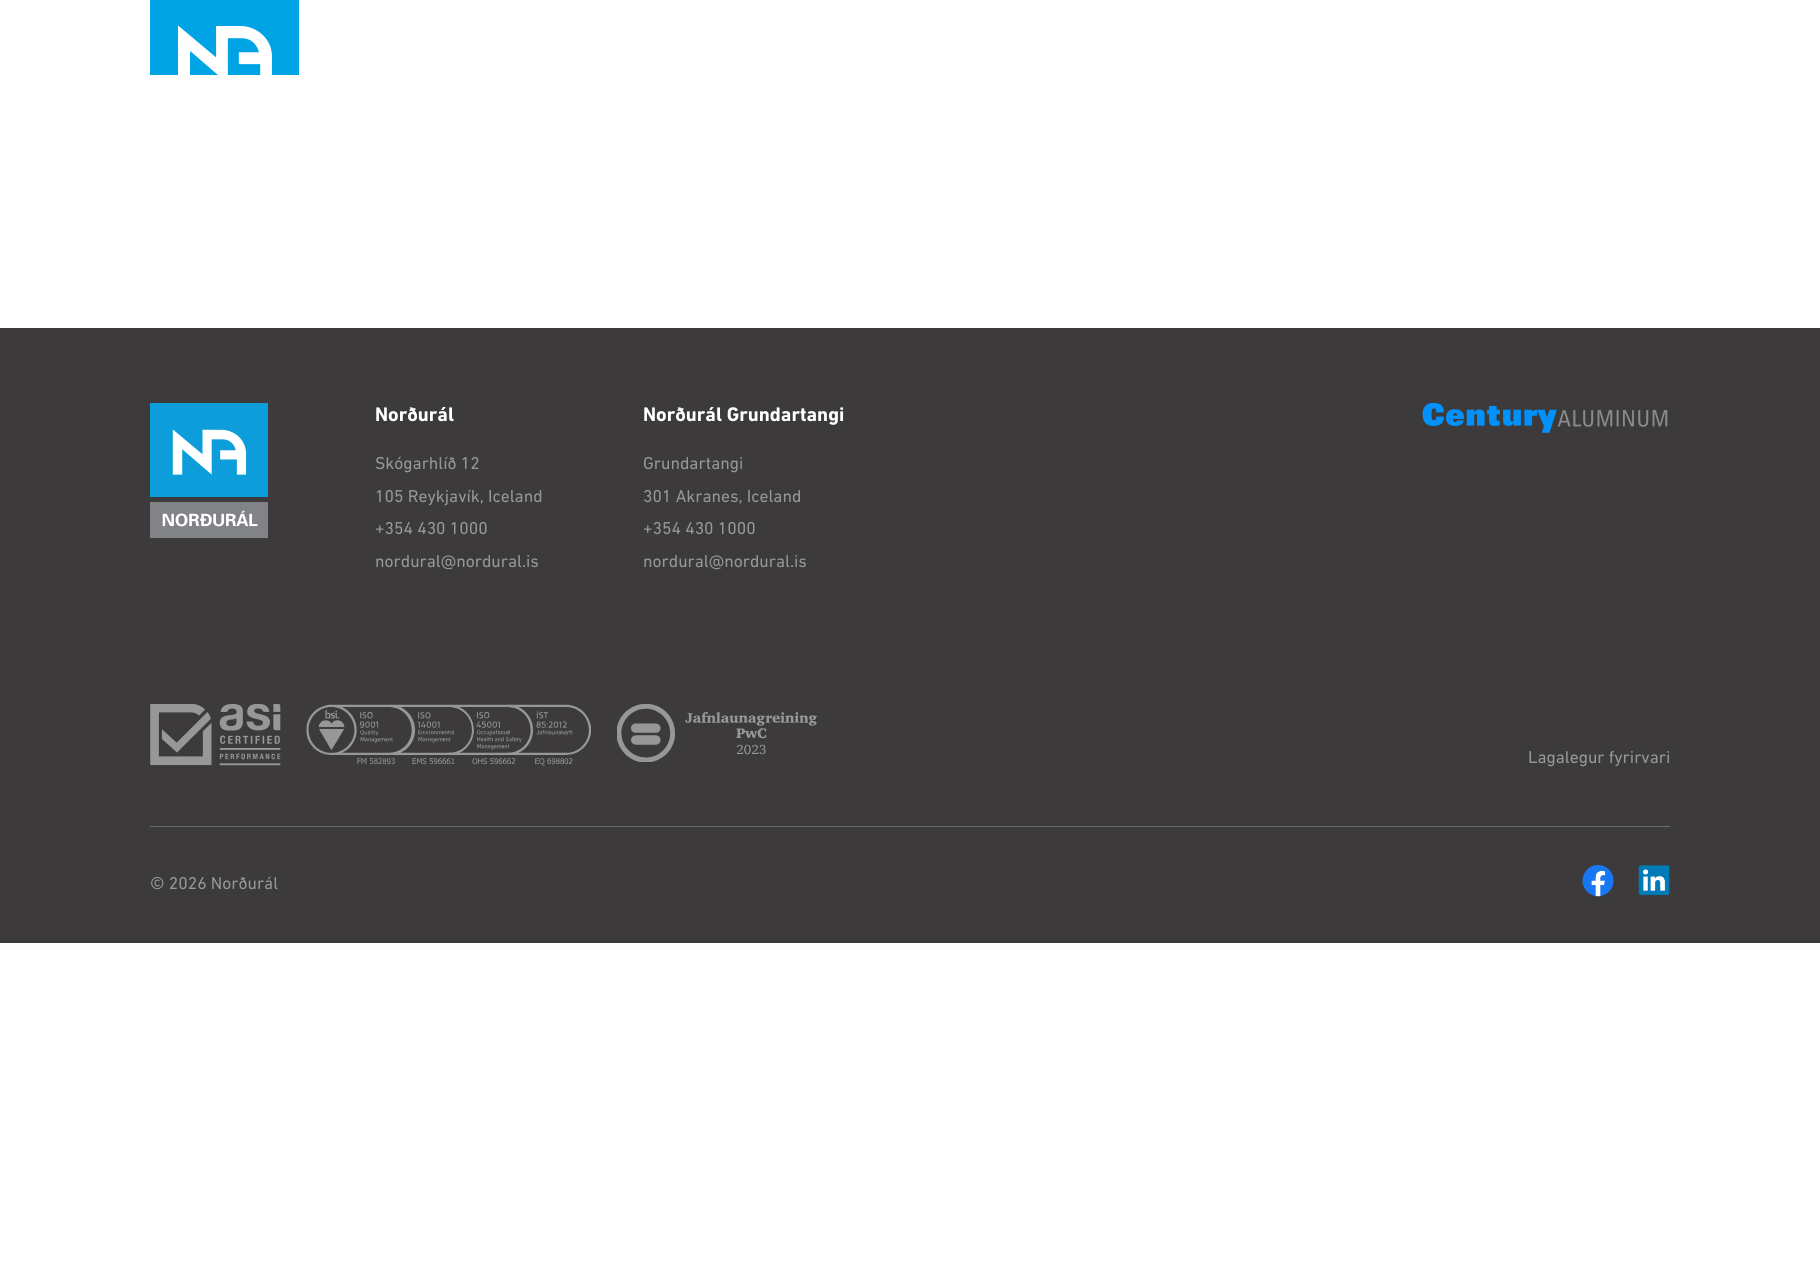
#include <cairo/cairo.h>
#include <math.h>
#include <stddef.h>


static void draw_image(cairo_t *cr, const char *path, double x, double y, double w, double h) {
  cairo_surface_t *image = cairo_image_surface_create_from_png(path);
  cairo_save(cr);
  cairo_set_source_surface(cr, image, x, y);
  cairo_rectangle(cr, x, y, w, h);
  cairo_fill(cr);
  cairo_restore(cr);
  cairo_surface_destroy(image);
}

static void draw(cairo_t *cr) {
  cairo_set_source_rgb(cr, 1, 1, 1);
  cairo_paint(cr);
  draw_image(cr, "images/1.png", 150, 0, 149, 75);
  cairo_set_source_rgb(cr, 60 / 255.0, 58 / 255.0, 59 / 255.0);
  cairo_rectangle(cr, 0, 328, 1820, 615);
  cairo_fill(cr);
  draw_image(cr, "images/2.png", 150, 403, 118, 135);
  draw_image(cr, "images/3.png", 1422, 403, 246, 30);
  draw_image(cr, "images/4.png", 150, 704, 131, 62);
  draw_image(cr, "images/5.png", 306, 704, 285, 62);
  draw_image(cr, "images/6.png", 617, 704, 201, 58);
  cairo_set_source_rgb(cr, 107 / 255.0, 107 / 255.0, 108 / 255.0);
  cairo_rectangle(cr, 150, 826, 1520, 1);
  cairo_fill(cr);
  draw_image(cr, "images/7.png", 1582, 865, 32, 32);
  draw_image(cr, "images/8.png", 1638, 865, 32, 30);
  cairo_select_font_face(cr, "DIN Next", CAIRO_FONT_SLANT_NORMAL, CAIRO_FONT_WEIGHT_BOLD);
  cairo_set_font_size(cr, 20);
  cairo_set_source_rgb(cr, 1, 1, 1);
  cairo_move_to(cr, 375, 421);
  cairo_show_text(cr, "Norðurál");
  cairo_select_font_face(cr, "DIN Next", CAIRO_FONT_SLANT_NORMAL, CAIRO_FONT_WEIGHT_NORMAL);
  cairo_set_font_size(cr, 17.5);
  cairo_set_source_rgb(cr, 151 / 255.0, 151 / 255.0, 151 / 255.0);
  cairo_move_to(cr, 375, 469);
  cairo_show_text(cr, "Skógarhlíð 12");
  cairo_move_to(cr, 375, 502);
  cairo_show_text(cr, "105 Reykjavík, Iceland");
  cairo_move_to(cr, 375, 534);
  cairo_show_text(cr, "+354 430 1000");
  cairo_move_to(cr, 375, 567);
  cairo_show_text(cr, "nordural@nordural.is");
  cairo_select_font_face(cr, "DIN Next", CAIRO_FONT_SLANT_NORMAL, CAIRO_FONT_WEIGHT_BOLD);
  cairo_set_font_size(cr, 20);
  cairo_set_source_rgb(cr, 1, 1, 1);
  cairo_move_to(cr, 643, 421);
  cairo_show_text(cr, "Norðurál Grundartangi");
  cairo_select_font_face(cr, "DIN Next", CAIRO_FONT_SLANT_NORMAL, CAIRO_FONT_WEIGHT_NORMAL);
  cairo_set_font_size(cr, 17.5);
  cairo_set_source_rgb(cr, 151 / 255.0, 151 / 255.0, 151 / 255.0);
  cairo_move_to(cr, 643, 469);
  cairo_show_text(cr, "Grundartangi");
  cairo_move_to(cr, 643, 502);
  cairo_show_text(cr, "301 Akranes, Iceland");
  cairo_move_to(cr, 643, 534);
  cairo_show_text(cr, "+354 430 1000");
  cairo_move_to(cr, 643, 567);
  cairo_show_text(cr, "nordural@nordural.is");
  cairo_move_to(cr, 1528, 763);
  cairo_show_text(cr, "Lagalegur fyrirvari");
  cairo_move_to(cr, 150, 889);
  cairo_show_text(cr, "© 2026 Norðurál");
}

int main(void) {
  cairo_surface_t *surface = cairo_image_surface_create(CAIRO_FORMAT_RGB24, 1820, 1270);
  cairo_t *cr = cairo_create(surface);
  cairo_font_options_t *options = cairo_font_options_create();
  cairo_font_options_set_hint_metrics(options, CAIRO_HINT_METRICS_OFF);
  cairo_font_options_set_hint_style(options, CAIRO_HINT_STYLE_NONE);
  cairo_set_font_options(cr, options);
  cairo_set_miter_limit(cr, 4);
  draw(cr);
  cairo_surface_write_to_png(surface, "out.png");
  cairo_font_options_destroy(options);
  cairo_destroy(cr);
  cairo_surface_destroy(surface);
  return 0;
}
